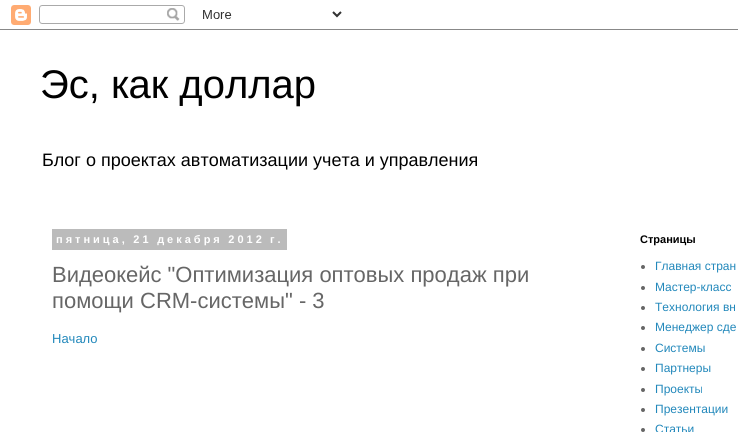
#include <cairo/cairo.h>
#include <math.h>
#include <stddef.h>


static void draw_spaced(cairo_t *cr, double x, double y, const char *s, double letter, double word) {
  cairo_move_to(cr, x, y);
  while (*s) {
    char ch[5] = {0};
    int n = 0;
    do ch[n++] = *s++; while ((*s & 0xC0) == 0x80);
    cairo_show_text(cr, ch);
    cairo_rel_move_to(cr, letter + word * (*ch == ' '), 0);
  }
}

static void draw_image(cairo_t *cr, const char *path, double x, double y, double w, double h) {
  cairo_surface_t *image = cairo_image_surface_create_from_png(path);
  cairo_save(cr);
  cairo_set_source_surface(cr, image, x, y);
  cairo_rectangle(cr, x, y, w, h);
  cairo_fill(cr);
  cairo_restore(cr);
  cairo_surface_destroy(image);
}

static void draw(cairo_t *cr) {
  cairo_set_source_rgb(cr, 1, 1, 1);
  cairo_paint(cr);
  draw_image(cr, "images/1.png", 0, 5, 738, 25);
  cairo_set_source_rgb(cr, 187 / 255.0, 187 / 255.0, 187 / 255.0);
  cairo_rectangle(cr, 52, 229, 235, 21);
  cairo_fill(cr);
  cairo_set_source_rgb(cr, 102 / 255.0, 102 / 255.0, 102 / 255.0);
  cairo_arc(cr, 643, 267, 2, 0, 2 * M_PI);
  cairo_fill(cr);
  cairo_arc(cr, 643, 288, 2, 0, 2 * M_PI);
  cairo_fill(cr);
  cairo_arc(cr, 643, 308, 2, 0, 2 * M_PI);
  cairo_fill(cr);
  cairo_arc(cr, 643, 328, 2, 0, 2 * M_PI);
  cairo_fill(cr);
  cairo_arc(cr, 643, 349, 2, 0, 2 * M_PI);
  cairo_fill(cr);
  cairo_arc(cr, 643, 369, 2, 0, 2 * M_PI);
  cairo_fill(cr);
  cairo_arc(cr, 643, 390, 2, 0, 2 * M_PI);
  cairo_fill(cr);
  cairo_arc(cr, 643, 410, 2, 0, 2 * M_PI);
  cairo_fill(cr);
  cairo_arc(cr, 643, 430, 2, 0, 2 * M_PI);
  cairo_fill(cr);
  cairo_select_font_face(cr, "Liberation Sans", CAIRO_FONT_SLANT_NORMAL, CAIRO_FONT_WEIGHT_NORMAL);
  cairo_set_font_size(cr, 40);
  cairo_set_source_rgb(cr, 0, 0, 0);
  cairo_move_to(cr, 40, 98);
  cairo_show_text(cr, "Эс, как доллар");
  cairo_set_font_size(cr, 18);
  cairo_move_to(cr, 42, 166);
  cairo_show_text(cr, "Блог о проектах автоматизации учета и управления");
  cairo_select_font_face(cr, "Liberation Sans", CAIRO_FONT_SLANT_NORMAL, CAIRO_FONT_WEIGHT_BOLD);
  cairo_set_font_size(cr, 11);
  cairo_set_source_rgb(cr, 1, 1, 1);
  draw_spaced(cr, 56, 243, "пятница, 21 декабря 2012 г.", 3, -0.5);
  cairo_select_font_face(cr, "Liberation Sans", CAIRO_FONT_SLANT_NORMAL, CAIRO_FONT_WEIGHT_NORMAL);
  cairo_set_font_size(cr, 22);
  cairo_set_source_rgb(cr, 102 / 255.0, 102 / 255.0, 102 / 255.0);
  cairo_move_to(cr, 52, 282);
  cairo_show_text(cr, "Видеокейс \"Оптимизация оптовых продаж при");
  cairo_move_to(cr, 52, 308);
  cairo_show_text(cr, "помощи CRM-системы\" - 3");
  cairo_set_font_size(cr, 13);
  cairo_set_source_rgb(cr, 34 / 255.0, 136 / 255.0, 187 / 255.0);
  cairo_move_to(cr, 52, 343);
  cairo_show_text(cr, "Начало");
  cairo_select_font_face(cr, "Liberation Sans", CAIRO_FONT_SLANT_NORMAL, CAIRO_FONT_WEIGHT_BOLD);
  cairo_set_font_size(cr, 11);
  cairo_set_source_rgb(cr, 0, 0, 0);
  cairo_move_to(cr, 640, 243);
  cairo_show_text(cr, "Страницы");
  cairo_select_font_face(cr, "Liberation Sans", CAIRO_FONT_SLANT_NORMAL, CAIRO_FONT_WEIGHT_NORMAL);
  cairo_set_font_size(cr, 12);
  cairo_set_source_rgb(cr, 34 / 255.0, 136 / 255.0, 187 / 255.0);
  cairo_move_to(cr, 655, 270);
  cairo_show_text(cr, "Главная стран");
  cairo_move_to(cr, 655, 291);
  cairo_show_text(cr, "Мастер-класс");
  cairo_move_to(cr, 655, 311);
  cairo_show_text(cr, "Технология вн");
  cairo_move_to(cr, 655, 331);
  cairo_show_text(cr, "Менеджер сде");
  cairo_move_to(cr, 655, 352);
  cairo_show_text(cr, "Системы");
  cairo_move_to(cr, 655, 372);
  cairo_show_text(cr, "Партнеры");
  cairo_move_to(cr, 655, 393);
  cairo_show_text(cr, "Проекты");
  cairo_move_to(cr, 655, 413);
  cairo_show_text(cr, "Презентации");
  cairo_move_to(cr, 655, 433);
  cairo_show_text(cr, "Статьи");
}

int main(void) {
  cairo_surface_t *surface = cairo_image_surface_create(CAIRO_FORMAT_RGB24, 738, 432);
  cairo_t *cr = cairo_create(surface);
  cairo_font_options_t *options = cairo_font_options_create();
  cairo_font_options_set_hint_metrics(options, CAIRO_HINT_METRICS_OFF);
  cairo_font_options_set_hint_style(options, CAIRO_HINT_STYLE_NONE);
  cairo_set_font_options(cr, options);
  cairo_set_miter_limit(cr, 4);
  draw(cr);
  cairo_surface_write_to_png(surface, "out.png");
  cairo_font_options_destroy(options);
  cairo_destroy(cr);
  cairo_surface_destroy(surface);
  return 0;
}
